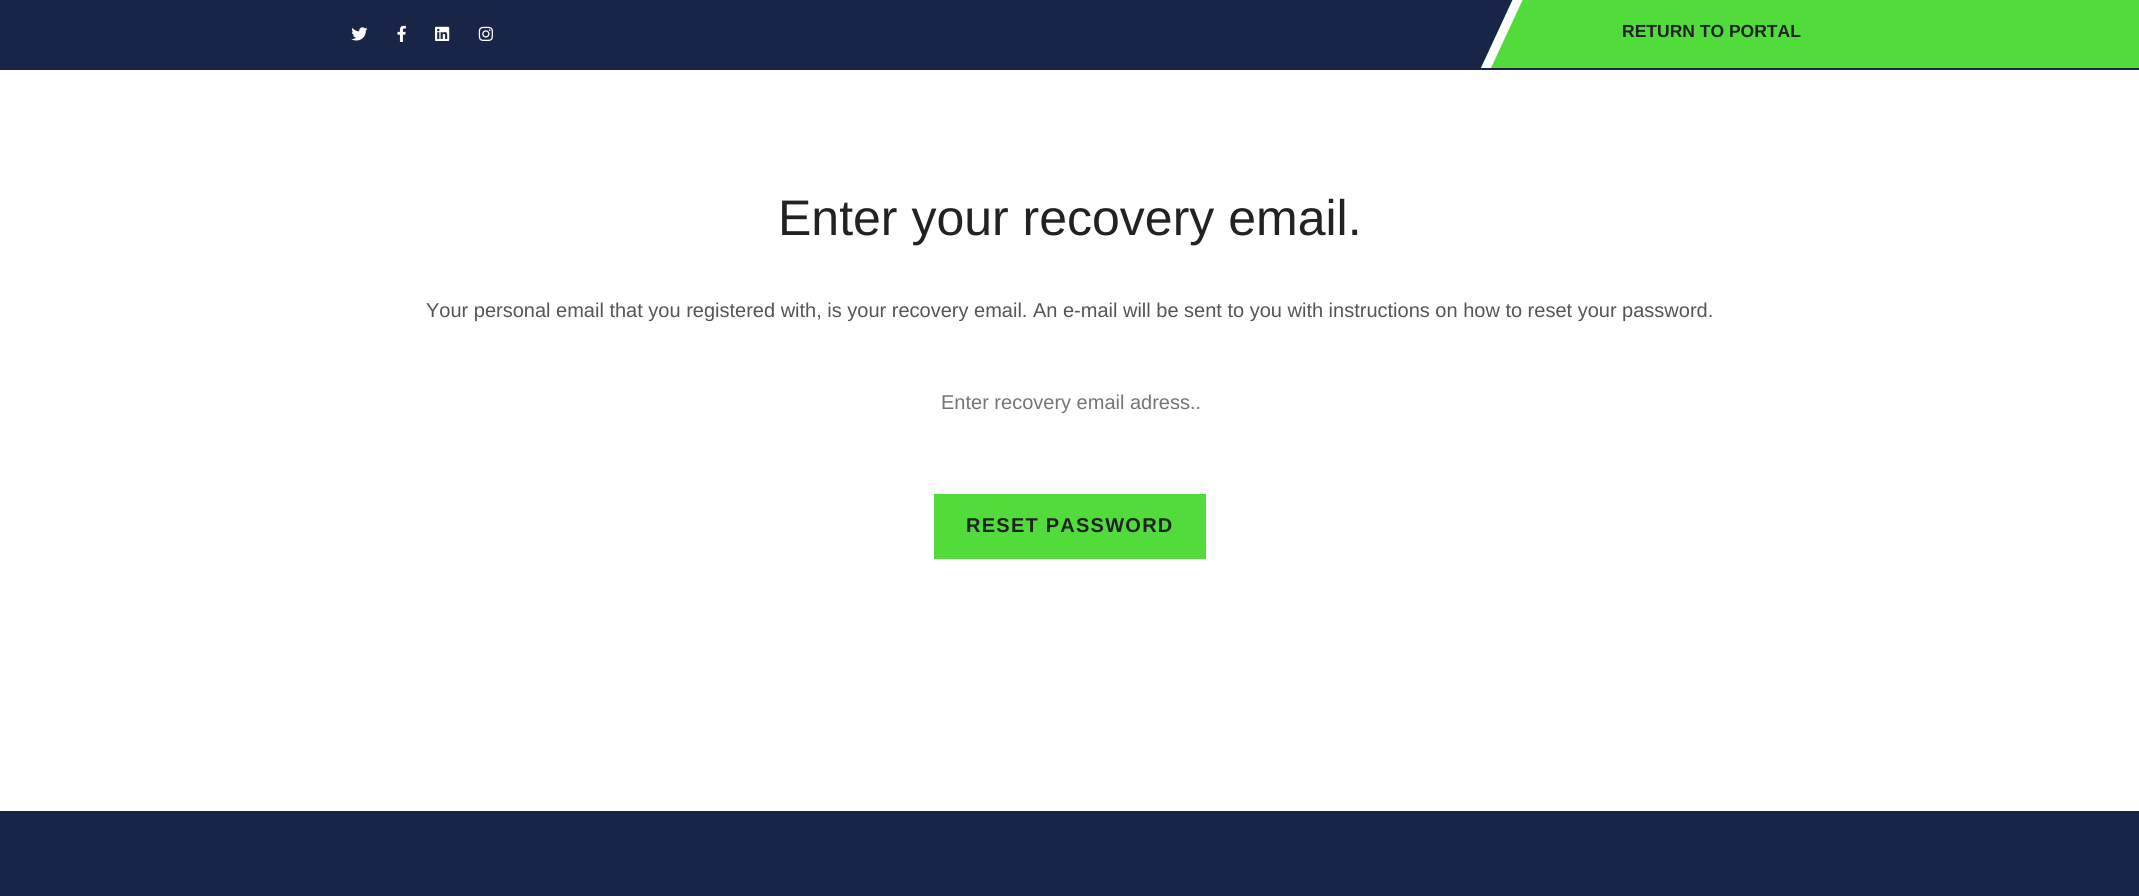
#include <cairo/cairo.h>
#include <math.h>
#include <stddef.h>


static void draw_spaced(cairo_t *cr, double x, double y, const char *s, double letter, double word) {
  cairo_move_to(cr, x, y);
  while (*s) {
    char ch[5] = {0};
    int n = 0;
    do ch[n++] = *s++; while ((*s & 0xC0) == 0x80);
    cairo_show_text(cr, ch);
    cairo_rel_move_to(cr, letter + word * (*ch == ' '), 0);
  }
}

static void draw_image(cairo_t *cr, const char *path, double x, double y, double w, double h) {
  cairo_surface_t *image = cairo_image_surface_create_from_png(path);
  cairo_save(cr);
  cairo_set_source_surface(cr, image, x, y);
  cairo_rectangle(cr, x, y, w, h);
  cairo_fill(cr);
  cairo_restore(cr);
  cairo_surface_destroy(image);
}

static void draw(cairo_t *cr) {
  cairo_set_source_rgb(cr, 1, 1, 1);
  cairo_paint(cr);
  cairo_set_source_rgb(cr, 25 / 255.0, 37 / 255.0, 70 / 255.0);
  cairo_rectangle(cr, 0, 0, 2139, 70);
  cairo_fill(cr);
  draw_image(cr, "images/1.png", 351, 27, 17, 14);
  draw_image(cr, "images/2.png", 397, 25, 9, 17);
  draw_image(cr, "images/3.png", 435, 26, 15, 15);
  draw_image(cr, "images/4.png", 478, 26, 15, 15);
  cairo_set_source_rgb(cr, 81 / 255.0, 220 / 255.0, 60 / 255.0);
  cairo_new_path(cr);
  cairo_move_to(cr, 1513, -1);
  cairo_line_to(cr, 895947, -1);
  cairo_line_to(cr, 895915, 68);
  cairo_line_to(cr, 1481, 68);
  cairo_close_path(cr);
  cairo_fill(cr);
  cairo_set_source_rgb(cr, 1, 1, 1);
  cairo_new_path(cr);
  cairo_move_to(cr, 1513, -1);
  cairo_line_to(cr, 1523, -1);
  cairo_line_to(cr, 1491, 68);
  cairo_line_to(cr, 1481, 68);
  cairo_close_path(cr);
  cairo_fill(cr);
  cairo_set_source_rgb(cr, 81 / 255.0, 220 / 255.0, 60 / 255.0);
  cairo_rectangle(cr, 934, 494, 272, 65);
  cairo_fill(cr);
  cairo_set_source_rgb(cr, 25 / 255.0, 37 / 255.0, 70 / 255.0);
  cairo_rectangle(cr, 0, 811, 2139, 85);
  cairo_fill(cr);
  cairo_select_font_face(cr, "Liberation Sans", CAIRO_FONT_SLANT_NORMAL, CAIRO_FONT_WEIGHT_BOLD);
  cairo_set_font_size(cr, 17.5);
  cairo_set_source_rgb(cr, 34 / 255.0, 34 / 255.0, 34 / 255.0);
  cairo_move_to(cr, 1622, 37);
  cairo_show_text(cr, "RETURN TO PORTAL");
  cairo_select_font_face(cr, "Liberation Sans", CAIRO_FONT_SLANT_NORMAL, CAIRO_FONT_WEIGHT_NORMAL);
  cairo_set_font_size(cr, 50);
  cairo_move_to(cr, 778, 235);
  cairo_show_text(cr, "Enter your recovery email.");
  cairo_set_font_size(cr, 20);
  cairo_set_source_rgb(cr, 85 / 255.0, 85 / 255.0, 85 / 255.0);
  cairo_move_to(cr, 426, 317);
  cairo_show_text(cr, "Your personal email that you registered with, is your recovery email. An e-mail will be sent to you with instructions on how to reset your password.");
  cairo_set_source_rgb(cr, 117 / 255.0, 117 / 255.0, 117 / 255.0);
  cairo_move_to(cr, 941, 409);
  cairo_show_text(cr, "Enter recovery email adress..");
  cairo_select_font_face(cr, "Liberation Sans", CAIRO_FONT_SLANT_NORMAL, CAIRO_FONT_WEIGHT_BOLD);
  cairo_set_source_rgb(cr, 34 / 255.0, 34 / 255.0, 34 / 255.0);
  draw_spaced(cr, 966, 532, "RESET PASSWORD", 1.25, 0);
}

int main(void) {
  cairo_surface_t *surface = cairo_image_surface_create(CAIRO_FORMAT_RGB24, 2139, 896);
  cairo_t *cr = cairo_create(surface);
  cairo_font_options_t *options = cairo_font_options_create();
  cairo_font_options_set_hint_metrics(options, CAIRO_HINT_METRICS_OFF);
  cairo_font_options_set_hint_style(options, CAIRO_HINT_STYLE_NONE);
  cairo_set_font_options(cr, options);
  cairo_set_miter_limit(cr, 4);
  draw(cr);
  cairo_surface_write_to_png(surface, "out.png");
  cairo_font_options_destroy(options);
  cairo_destroy(cr);
  cairo_surface_destroy(surface);
  return 0;
}
